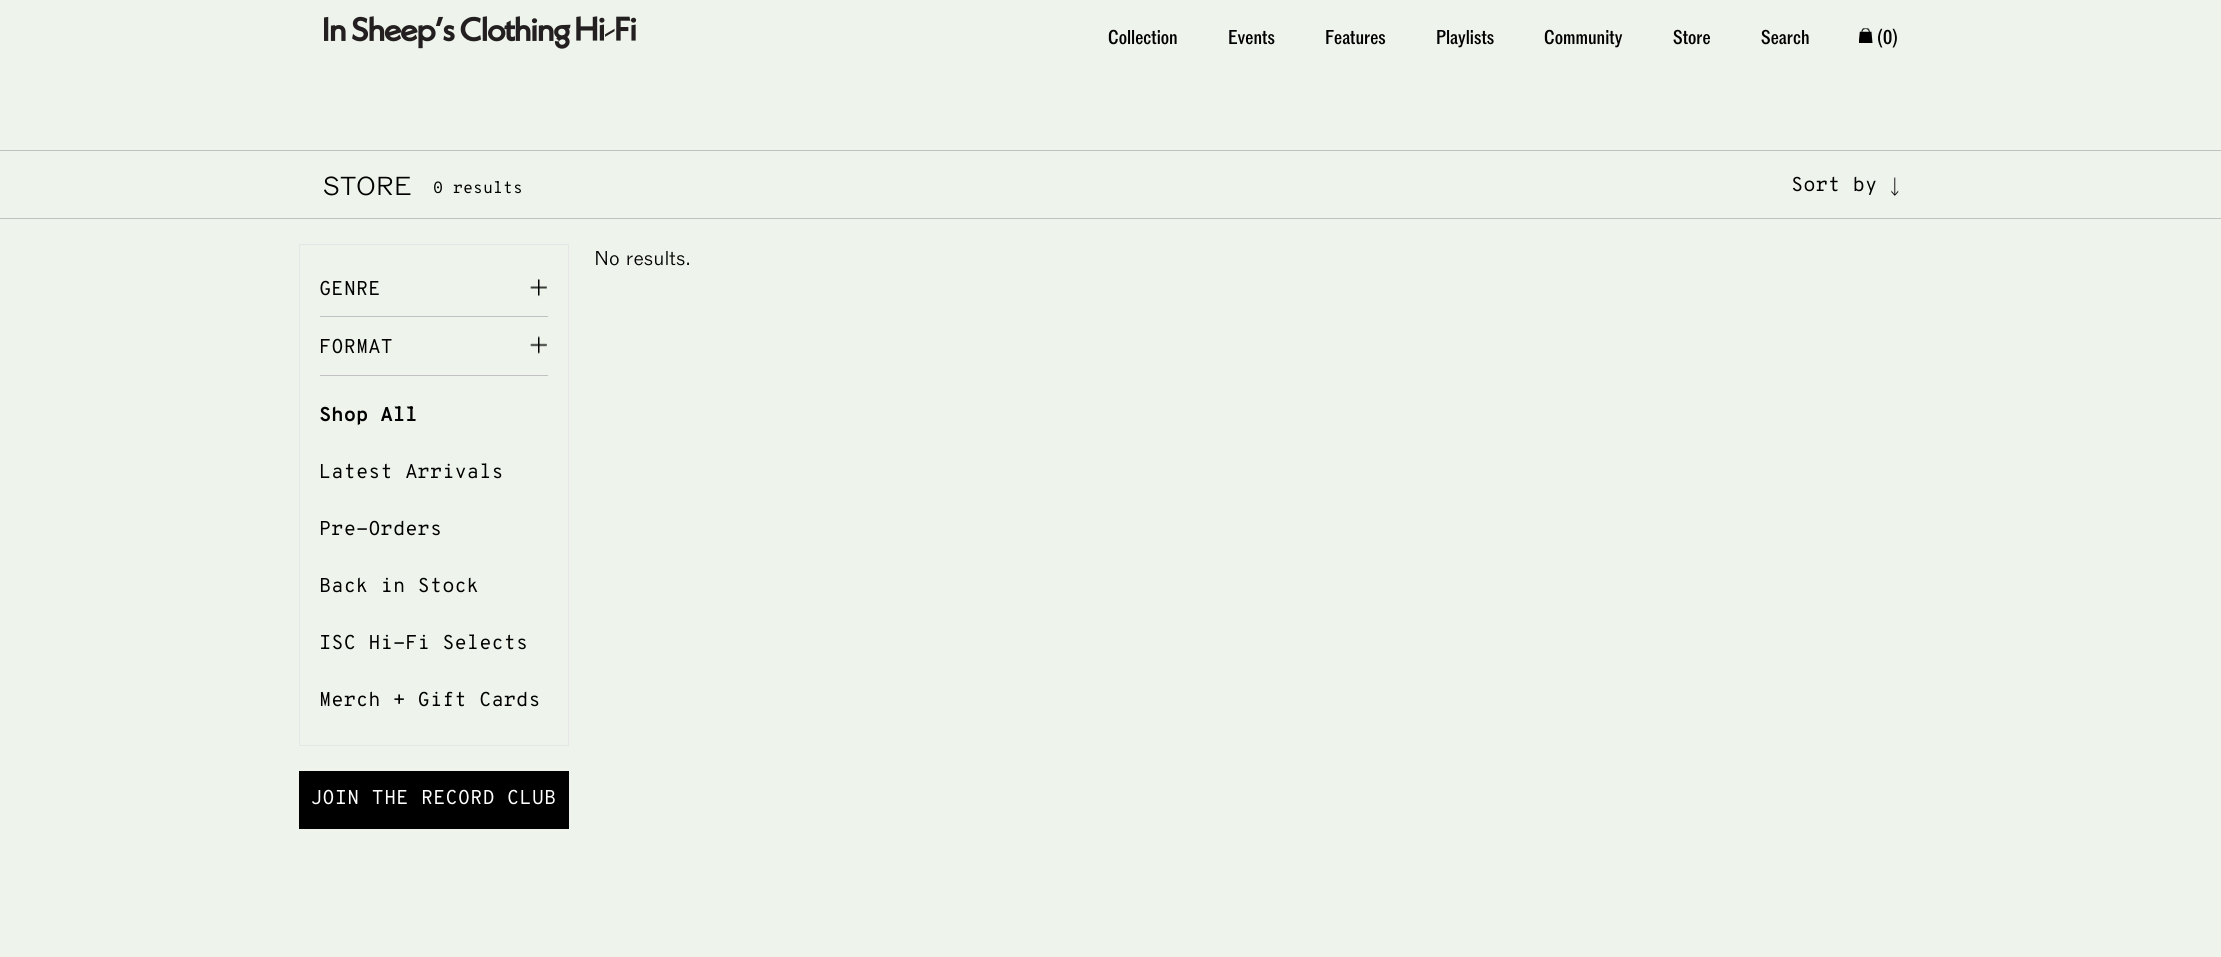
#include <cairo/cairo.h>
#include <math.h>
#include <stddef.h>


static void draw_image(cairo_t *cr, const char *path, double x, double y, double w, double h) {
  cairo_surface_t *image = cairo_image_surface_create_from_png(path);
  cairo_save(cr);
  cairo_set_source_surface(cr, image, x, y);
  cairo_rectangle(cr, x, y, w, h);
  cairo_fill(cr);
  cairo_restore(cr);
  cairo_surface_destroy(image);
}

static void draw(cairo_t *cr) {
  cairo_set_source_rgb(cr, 238 / 255.0, 244 / 255.0, 236 / 255.0);
  cairo_paint(cr);
  draw_image(cr, "images/1.png", 324, 16, 312, 33);
  draw_image(cr, "images/2.png", 1859, 28, 14, 15);
  cairo_set_source_rgb(cr, 193 / 255.0, 193 / 255.0, 193 / 255.0);
  cairo_rectangle(cr, 0, 150, 2221, 1);
  cairo_fill(cr);
  cairo_rectangle(cr, 0, 218, 2221, 1);
  cairo_fill(cr);
  draw_image(cr, "images/3.png", 1891, 177, 8, 19);
  cairo_rectangle(cr, 299.5, 244.5, 269, 501);
  cairo_set_source_rgb(cr, 230 / 255.0, 230 / 255.0, 230 / 255.0);
  cairo_set_line_width(cr, 1);
  cairo_stroke(cr);
  cairo_set_source_rgb(cr, 193 / 255.0, 193 / 255.0, 193 / 255.0);
  cairo_rectangle(cr, 320, 316, 228, 1);
  cairo_fill(cr);
  draw_image(cr, "images/4.png", 530, 278, 17, 19);
  cairo_rectangle(cr, 320, 375, 228, 1);
  cairo_fill(cr);
  draw_image(cr, "images/5.png", 530, 336, 17, 18);
  cairo_set_source_rgb(cr, 0, 0, 0);
  cairo_rectangle(cr, 299, 771, 270, 58);
  cairo_fill(cr);
  cairo_select_font_face(cr, "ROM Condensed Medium", CAIRO_FONT_SLANT_NORMAL, CAIRO_FONT_WEIGHT_NORMAL);
  cairo_set_font_size(cr, 20);
  cairo_move_to(cr, 1108, 44);
  cairo_show_text(cr, "Collection");
  cairo_move_to(cr, 1228, 44);
  cairo_show_text(cr, "Events");
  cairo_move_to(cr, 1325, 44);
  cairo_show_text(cr, "Features");
  cairo_move_to(cr, 1436, 44);
  cairo_show_text(cr, "Playlists");
  cairo_move_to(cr, 1544, 44);
  cairo_show_text(cr, "Community");
  cairo_move_to(cr, 1673, 44);
  cairo_show_text(cr, "Store");
  cairo_move_to(cr, 1761, 44);
  cairo_show_text(cr, "Search");
  cairo_move_to(cr, 1877, 44);
  cairo_show_text(cr, "(0)");
  cairo_select_font_face(cr, "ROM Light", CAIRO_FONT_SLANT_NORMAL, CAIRO_FONT_WEIGHT_NORMAL);
  cairo_set_font_size(cr, 26);
  cairo_move_to(cr, 323, 195);
  cairo_show_text(cr, "STORE");
  cairo_select_font_face(cr, "Overpass Mono", CAIRO_FONT_SLANT_NORMAL, CAIRO_FONT_WEIGHT_NORMAL);
  cairo_set_font_size(cr, 16.25);
  cairo_move_to(cr, 433, 193);
  cairo_show_text(cr, "0 results");
  cairo_set_font_size(cr, 20);
  cairo_move_to(cr, 1791, 191);
  cairo_show_text(cr, "Sort by");
  cairo_select_font_face(cr, "ROM Light", CAIRO_FONT_SLANT_NORMAL, CAIRO_FONT_WEIGHT_NORMAL);
  cairo_move_to(cr, 594, 265);
  cairo_show_text(cr, "No results.");
  cairo_select_font_face(cr, "Overpass Mono", CAIRO_FONT_SLANT_NORMAL, CAIRO_FONT_WEIGHT_NORMAL);
  cairo_move_to(cr, 319, 295);
  cairo_show_text(cr, "GENRE");
  cairo_move_to(cr, 319, 353);
  cairo_show_text(cr, "FORMAT");
  cairo_select_font_face(cr, "Overpass Mono", CAIRO_FONT_SLANT_NORMAL, CAIRO_FONT_WEIGHT_BOLD);
  cairo_move_to(cr, 319, 421);
  cairo_show_text(cr, "Shop All");
  cairo_select_font_face(cr, "Overpass Mono", CAIRO_FONT_SLANT_NORMAL, CAIRO_FONT_WEIGHT_NORMAL);
  cairo_move_to(cr, 319, 478);
  cairo_show_text(cr, "Latest Arrivals");
  cairo_move_to(cr, 319, 535);
  cairo_show_text(cr, "Pre-Orders");
  cairo_move_to(cr, 319, 592);
  cairo_show_text(cr, "Back in Stock");
  cairo_move_to(cr, 319, 649);
  cairo_show_text(cr, "ISC Hi-Fi Selects");
  cairo_move_to(cr, 319, 706);
  cairo_show_text(cr, "Merch + Gift Cards");
  cairo_set_source_rgb(cr, 1, 1, 1);
  cairo_move_to(cr, 310, 804);
  cairo_show_text(cr, "JOIN THE RECORD CLUB");
}

int main(void) {
  cairo_surface_t *surface = cairo_image_surface_create(CAIRO_FORMAT_RGB24, 2221, 957);
  cairo_t *cr = cairo_create(surface);
  cairo_font_options_t *options = cairo_font_options_create();
  cairo_font_options_set_hint_metrics(options, CAIRO_HINT_METRICS_OFF);
  cairo_font_options_set_hint_style(options, CAIRO_HINT_STYLE_NONE);
  cairo_set_font_options(cr, options);
  cairo_set_miter_limit(cr, 4);
  draw(cr);
  cairo_surface_write_to_png(surface, "out.png");
  cairo_font_options_destroy(options);
  cairo_destroy(cr);
  cairo_surface_destroy(surface);
  return 0;
}
